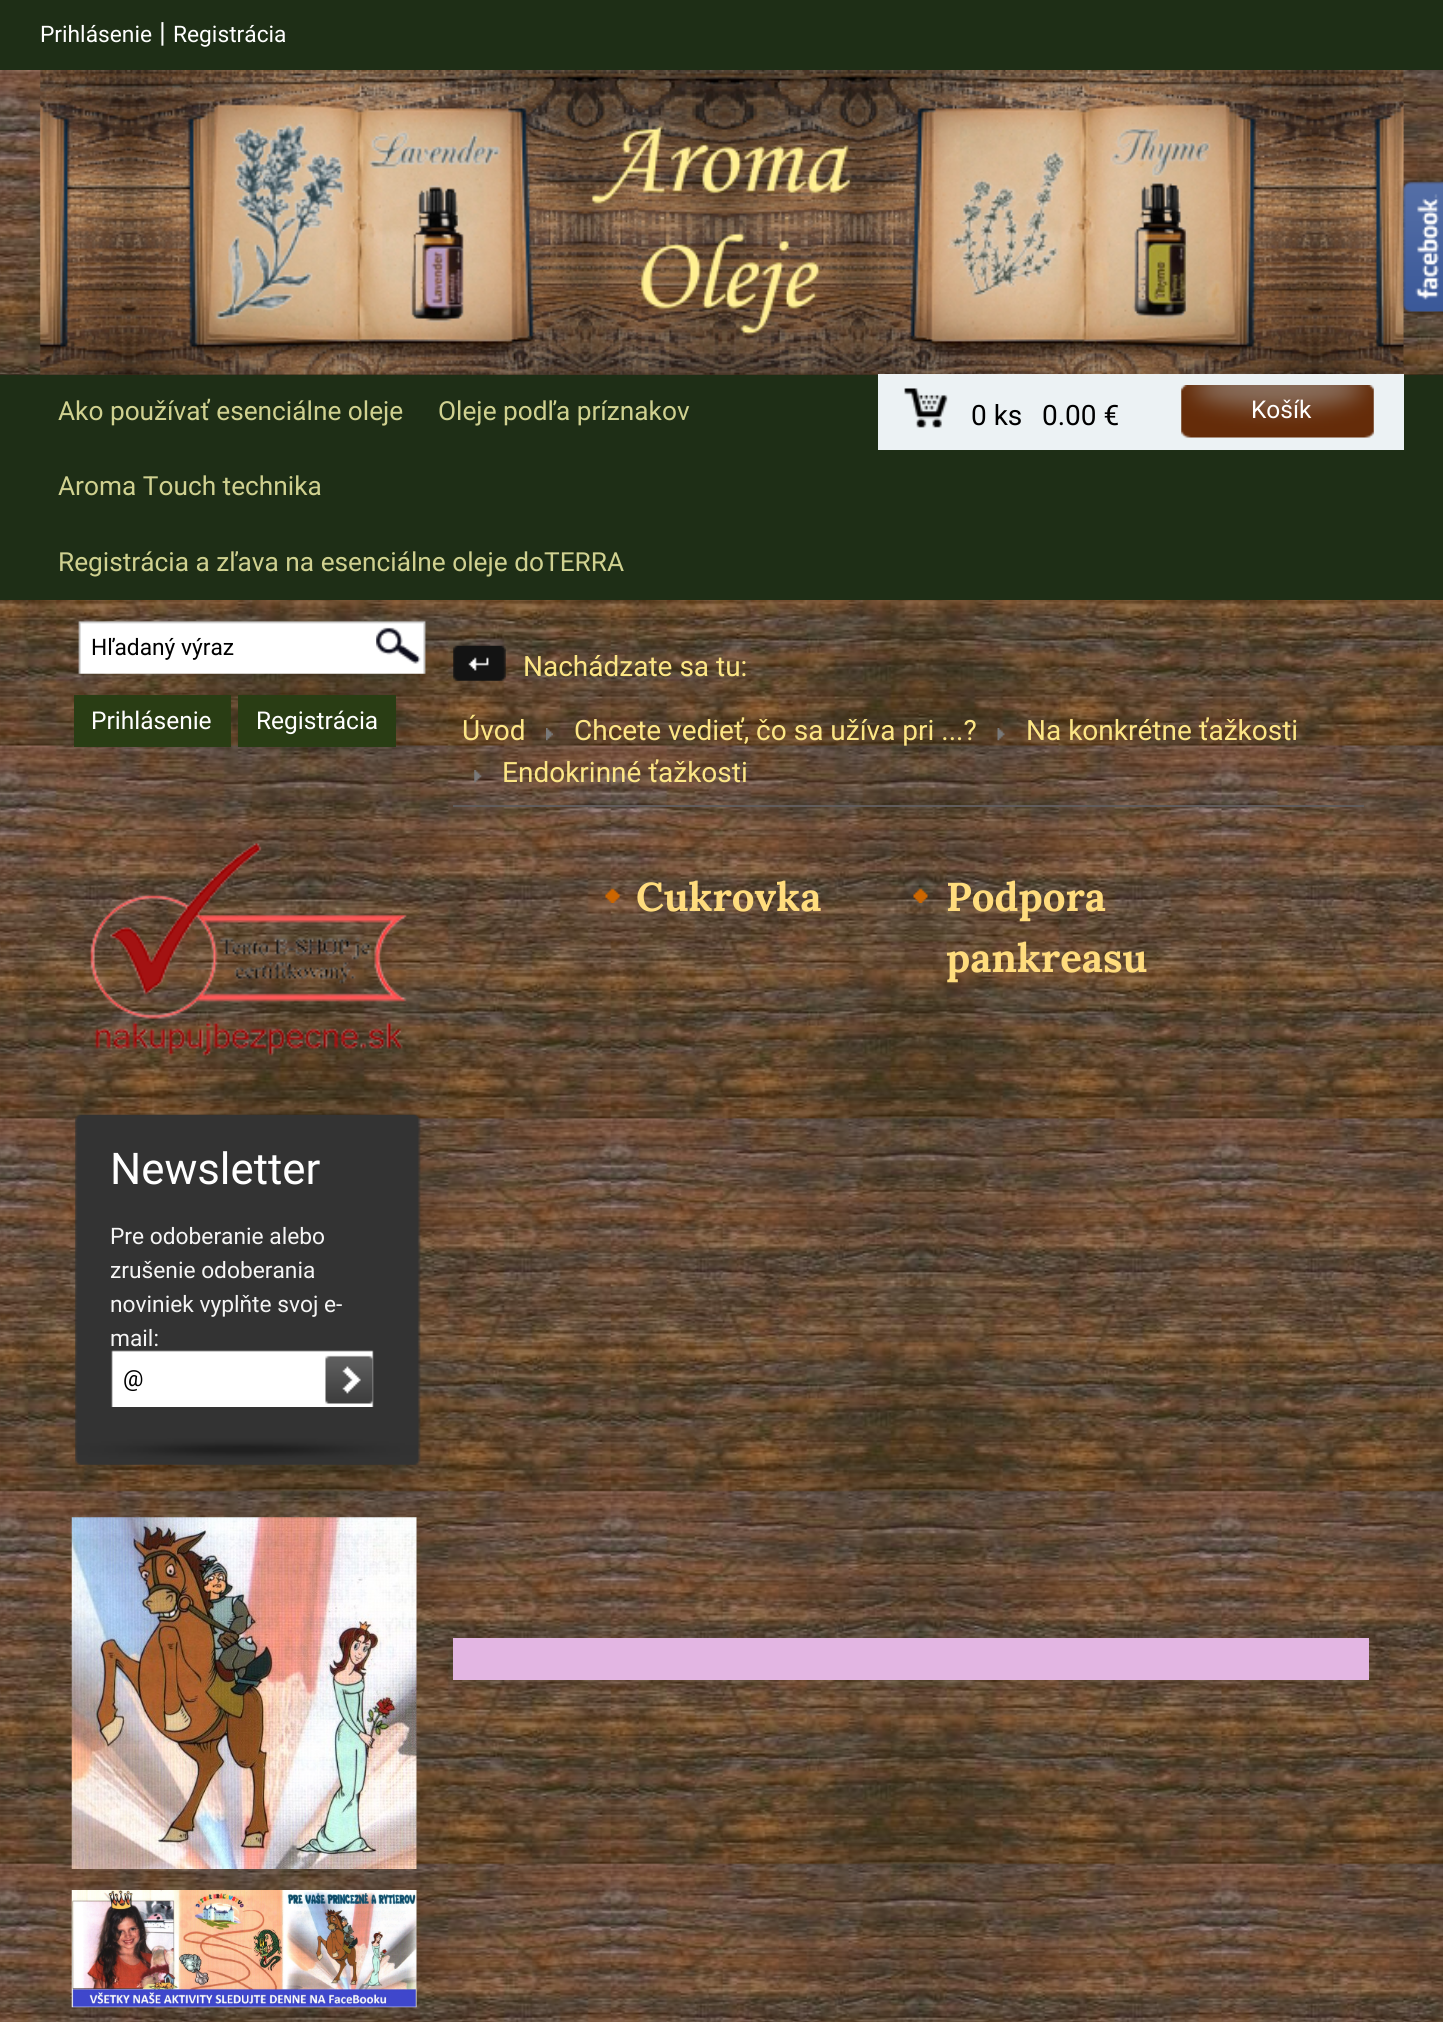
#include <cairo/cairo.h>
#include <math.h>
#include <stddef.h>


static void draw_image(cairo_t *cr, const char *path, double x, double y, double w, double h) {
  cairo_surface_t *image = cairo_image_surface_create_from_png(path);
  cairo_save(cr);
  cairo_set_source_surface(cr, image, x, y);
  cairo_rectangle(cr, x, y, w, h);
  cairo_fill(cr);
  cairo_restore(cr);
  cairo_surface_destroy(image);
}

static void draw(cairo_t *cr) {
  cairo_set_source_rgb(cr, 1, 1, 1);
  cairo_paint(cr);
  draw_image(cr, "images/1.png", 0, 600, 1443, 1422);
  cairo_set_source_rgb(cr, 30 / 255.0, 46 / 255.0, 22 / 255.0);
  cairo_rectangle(cr, 0, 0, 1443, 70);
  cairo_fill(cr);
  cairo_set_source_rgb(cr, 31 / 255.0, 22 / 255.0, 8 / 255.0);
  cairo_rectangle(cr, 0, 374, 1443, 1);
  cairo_fill(cr);
  draw_image(cr, "images/2.png", 0, 70, 1443, 305);
  draw_image(cr, "images/3.png", 40, 70, 1364, 305);
  cairo_set_source_rgb(cr, 30 / 255.0, 46 / 255.0, 22 / 255.0);
  cairo_rectangle(cr, 0, 375, 1443, 225);
  cairo_fill(cr);
  cairo_set_source_rgb(cr, 236 / 255.0, 242 / 255.0, 244 / 255.0);
  cairo_rectangle(cr, 878, 374, 526, 76);
  cairo_fill(cr);
  draw_image(cr, "images/4.png", 904, 388, 44, 40);
  draw_image(cr, "images/5.png", 1181, 385, 193, 53);
  draw_image(cr, "images/6.png", 78, 620, 348, 54);
  draw_image(cr, "images/7.png", 376, 627, 45, 37);
  cairo_set_source_rgb(cr, 41 / 255.0, 61 / 255.0, 20 / 255.0);
  cairo_rectangle(cr, 74, 695, 157, 52);
  cairo_fill(cr);
  cairo_rectangle(cr, 238, 695, 158, 52);
  cairo_fill(cr);
  draw_image(cr, "images/8.png", 90, 843, 317, 213);
  draw_image(cr, "images/9.png", 75, 1114, 346, 351);
  draw_image(cr, "images/10.png", 111, 1350, 263, 57);
  draw_image(cr, "images/11.png", 325, 1355, 48, 49);
  draw_image(cr, "images/12.png", 71, 1517, 346, 352);
  draw_image(cr, "images/13.png", 71, 1890, 346, 118);
  draw_image(cr, "images/14.png", 453, 645, 53, 36);
  draw_image(cr, "images/15.png", 546, 728, 7, 13);
  draw_image(cr, "images/16.png", 997, 728, 8, 13);
  draw_image(cr, "images/17.png", 474, 770, 8, 13);
  cairo_set_source_rgb(cr, 97 / 255.0, 92 / 255.0, 92 / 255.0);
  cairo_rectangle(cr, 453, 805, 911, 2);
  cairo_fill(cr);
  draw_image(cr, "images/18.png", 605, 888, 15, 15);
  draw_image(cr, "images/19.png", 913, 888, 15, 15);
  cairo_set_source_rgb(cr, 227 / 255.0, 182 / 255.0, 227 / 255.0);
  cairo_rectangle(cr, 453, 1638, 916, 42);
  cairo_fill(cr);
  draw_image(cr, "images/20.png", 1398, 177, 45, 138);
  cairo_select_font_face(cr, "Roboto", CAIRO_FONT_SLANT_NORMAL, CAIRO_FONT_WEIGHT_NORMAL);
  cairo_set_font_size(cr, 22.75);
  cairo_set_source_rgb(cr, 1, 1, 1);
  cairo_move_to(cr, 40, 42);
  cairo_show_text(cr, "Prihlásenie");
  cairo_set_font_size(cr, 28);
  cairo_move_to(cr, 159, 42);
  cairo_show_text(cr, "|");
  cairo_set_font_size(cr, 22.75);
  cairo_move_to(cr, 173, 42);
  cairo_show_text(cr, "Registrácia");
  cairo_set_font_size(cr, 26.25);
  cairo_set_source_rgb(cr, 208 / 255.0, 209 / 255.0, 144 / 255.0);
  cairo_move_to(cr, 58, 420);
  cairo_show_text(cr, "Ako používať esenciálne oleje");
  cairo_move_to(cr, 438, 420);
  cairo_show_text(cr, "Oleje podľa príznakov");
  cairo_move_to(cr, 58, 495);
  cairo_show_text(cr, "Aroma Touch technika");
  cairo_move_to(cr, 58, 571);
  cairo_show_text(cr, "Registrácia a zľava na esenciálne oleje doTERRA");
  cairo_set_font_size(cr, 28);
  cairo_set_source_rgb(cr, 0, 0, 0);
  cairo_move_to(cr, 971, 425);
  cairo_show_text(cr, "0 ks");
  cairo_move_to(cr, 1042, 425);
  cairo_show_text(cr, "0.00 €");
  cairo_set_font_size(cr, 24.5);
  cairo_set_source_rgb(cr, 1, 1, 1);
  cairo_move_to(cr, 1251, 418);
  cairo_show_text(cr, "Košík");
  cairo_set_font_size(cr, 22.75);
  cairo_set_source_rgb(cr, 0, 0, 0);
  cairo_move_to(cr, 91, 655);
  cairo_show_text(cr, "Hľadaný výraz");
  cairo_set_font_size(cr, 24.5);
  cairo_set_source_rgb(cr, 1, 1, 1);
  cairo_move_to(cr, 91, 729);
  cairo_show_text(cr, "Prihlásenie");
  cairo_move_to(cr, 256, 729);
  cairo_show_text(cr, "Registrácia");
  cairo_set_font_size(cr, 43.75);
  cairo_move_to(cr, 110, 1184);
  cairo_show_text(cr, "Newsletter");
  cairo_set_font_size(cr, 22.75);
  cairo_set_source_rgb(cr, 245 / 255.0, 245 / 255.0, 245 / 255.0);
  cairo_move_to(cr, 110, 1244);
  cairo_show_text(cr, "Pre odoberanie alebo");
  cairo_move_to(cr, 110, 1278);
  cairo_show_text(cr, "zrušenie odoberania");
  cairo_move_to(cr, 110, 1312);
  cairo_show_text(cr, "noviniek vyplňte svoj e-");
  cairo_move_to(cr, 110, 1346);
  cairo_show_text(cr, "mail:");
  cairo_set_source_rgb(cr, 0, 0, 0);
  cairo_move_to(cr, 123, 1386);
  cairo_show_text(cr, "@");
  cairo_set_font_size(cr, 28);
  cairo_set_source_rgb(cr, 252 / 255.0, 230 / 255.0, 133 / 255.0);
  cairo_move_to(cr, 523, 676);
  cairo_show_text(cr, "Nachádzate sa tu:");
  cairo_move_to(cr, 462, 740);
  cairo_show_text(cr, "Úvod");
  cairo_move_to(cr, 574, 740);
  cairo_show_text(cr, "Chcete vedieť, čo sa užíva pri ...?");
  cairo_move_to(cr, 1026, 740);
  cairo_show_text(cr, "Na konkrétne ťažkosti");
  cairo_move_to(cr, 502, 782);
  cairo_show_text(cr, "Endokrinné ťažkosti");
  cairo_select_font_face(cr, "Lora", CAIRO_FONT_SLANT_NORMAL, CAIRO_FONT_WEIGHT_BOLD);
  cairo_set_font_size(cr, 40.25);
  cairo_set_source_rgb(cr, 1, 220 / 255.0, 125 / 255.0);
  cairo_move_to(cr, 636, 911);
  cairo_show_text(cr, "Cukrovka");
  cairo_move_to(cr, 946, 911);
  cairo_show_text(cr, "Podpora");
  cairo_move_to(cr, 946, 972);
  cairo_show_text(cr, "pankreasu");
}

int main(void) {
  cairo_surface_t *surface = cairo_image_surface_create(CAIRO_FORMAT_RGB24, 1443, 2022);
  cairo_t *cr = cairo_create(surface);
  cairo_font_options_t *options = cairo_font_options_create();
  cairo_font_options_set_hint_metrics(options, CAIRO_HINT_METRICS_OFF);
  cairo_font_options_set_hint_style(options, CAIRO_HINT_STYLE_NONE);
  cairo_set_font_options(cr, options);
  cairo_set_miter_limit(cr, 4);
  draw(cr);
  cairo_surface_write_to_png(surface, "out.png");
  cairo_font_options_destroy(options);
  cairo_destroy(cr);
  cairo_surface_destroy(surface);
  return 0;
}
